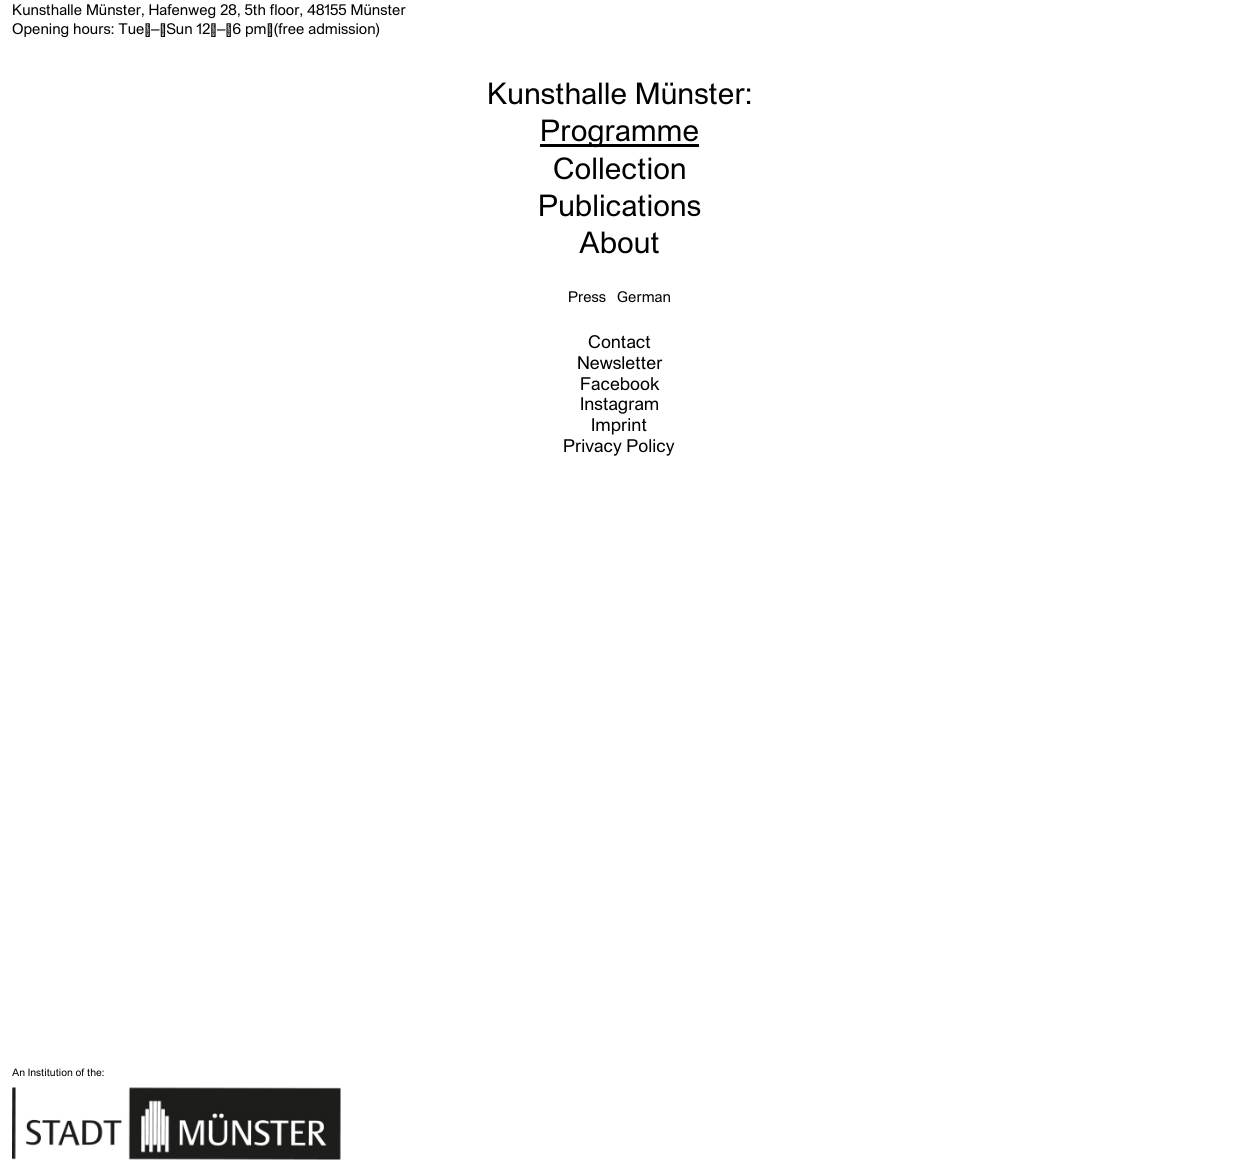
#include <cairo/cairo.h>
#include <math.h>
#include <stddef.h>


static void draw_image(cairo_t *cr, const char *path, double x, double y, double w, double h) {
  cairo_surface_t *image = cairo_image_surface_create_from_png(path);
  cairo_save(cr);
  cairo_set_source_surface(cr, image, x, y);
  cairo_rectangle(cr, x, y, w, h);
  cairo_fill(cr);
  cairo_restore(cr);
  cairo_surface_destroy(image);
}

static void draw(cairo_t *cr) {
  cairo_set_source_rgb(cr, 1, 1, 1);
  cairo_paint(cr);
  cairo_set_source_rgb(cr, 0, 0, 0);
  cairo_rectangle(cr, 540, 144, 159, 3);
  cairo_fill(cr);
  draw_image(cr, "images/1.png", 12, 1087, 329, 73);
  cairo_select_font_face(cr, "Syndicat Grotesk", CAIRO_FONT_SLANT_NORMAL, CAIRO_FONT_WEIGHT_NORMAL);
  cairo_set_font_size(cr, 15.5);
  cairo_move_to(cr, 12, 15);
  cairo_show_text(cr, "Kunsthalle Münster, Hafenweg 28, 5th floor, 48155 Münster");
  cairo_move_to(cr, 12, 34);
  cairo_show_text(cr, "Opening hours: Tue – Sun 12 – 6 pm (free admission)");
  cairo_set_font_size(cr, 31);
  cairo_move_to(cr, 487, 104);
  cairo_show_text(cr, "Kunsthalle Münster:");
  cairo_move_to(cr, 540, 141);
  cairo_show_text(cr, "Programme");
  cairo_move_to(cr, 553, 179);
  cairo_show_text(cr, "Collection");
  cairo_move_to(cr, 538, 216);
  cairo_show_text(cr, "Publications");
  cairo_move_to(cr, 579, 253);
  cairo_show_text(cr, "About");
  cairo_set_font_size(cr, 15.5);
  cairo_move_to(cr, 568, 302);
  cairo_show_text(cr, "Press");
  cairo_move_to(cr, 617, 302);
  cairo_show_text(cr, "German");
  cairo_set_font_size(cr, 18.5);
  cairo_move_to(cr, 588, 348);
  cairo_show_text(cr, "Contact");
  cairo_move_to(cr, 577, 369);
  cairo_show_text(cr, "Newsletter");
  cairo_move_to(cr, 580, 390);
  cairo_show_text(cr, "Facebook");
  cairo_move_to(cr, 580, 410);
  cairo_show_text(cr, "Instagram");
  cairo_move_to(cr, 591, 431);
  cairo_show_text(cr, "Imprint");
  cairo_move_to(cr, 563, 452);
  cairo_show_text(cr, "Privacy Policy");
  cairo_set_font_size(cr, 10.75);
  cairo_move_to(cr, 12, 1076);
  cairo_show_text(cr, "An Institution of the:");
}

int main(void) {
  cairo_surface_t *surface = cairo_image_surface_create(CAIRO_FORMAT_RGB24, 1239, 1172);
  cairo_t *cr = cairo_create(surface);
  cairo_font_options_t *options = cairo_font_options_create();
  cairo_font_options_set_hint_metrics(options, CAIRO_HINT_METRICS_OFF);
  cairo_font_options_set_hint_style(options, CAIRO_HINT_STYLE_NONE);
  cairo_set_font_options(cr, options);
  cairo_set_miter_limit(cr, 4);
  draw(cr);
  cairo_surface_write_to_png(surface, "out.png");
  cairo_font_options_destroy(options);
  cairo_destroy(cr);
  cairo_surface_destroy(surface);
  return 0;
}
